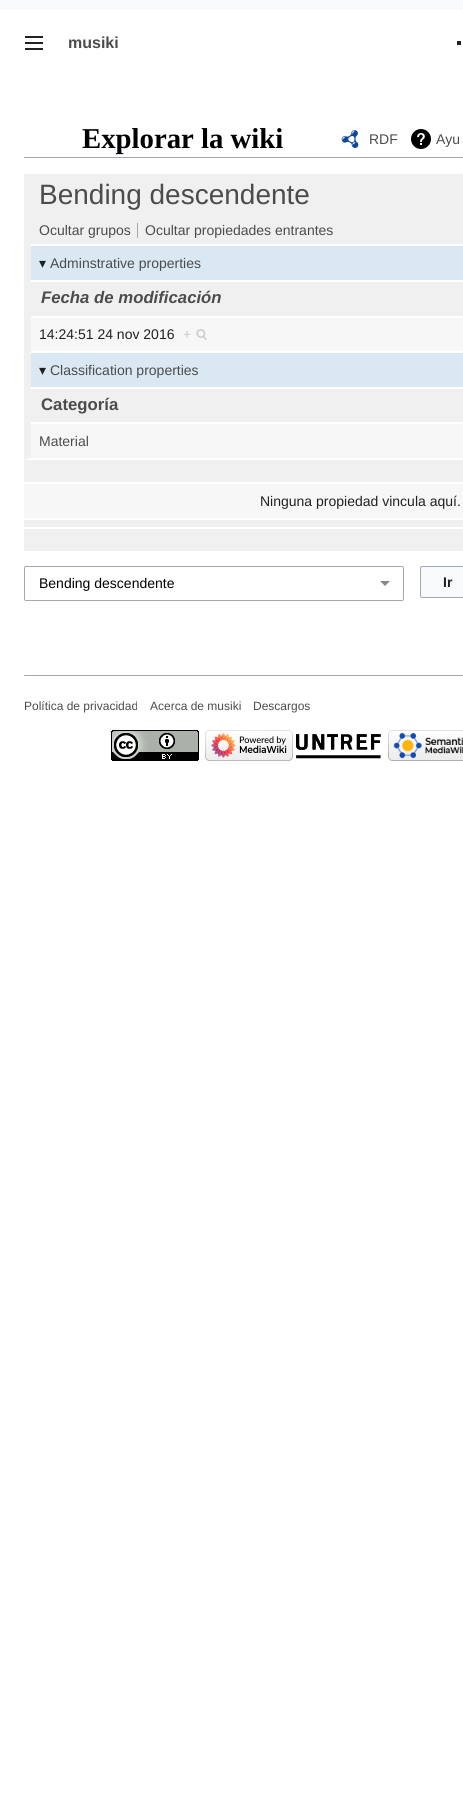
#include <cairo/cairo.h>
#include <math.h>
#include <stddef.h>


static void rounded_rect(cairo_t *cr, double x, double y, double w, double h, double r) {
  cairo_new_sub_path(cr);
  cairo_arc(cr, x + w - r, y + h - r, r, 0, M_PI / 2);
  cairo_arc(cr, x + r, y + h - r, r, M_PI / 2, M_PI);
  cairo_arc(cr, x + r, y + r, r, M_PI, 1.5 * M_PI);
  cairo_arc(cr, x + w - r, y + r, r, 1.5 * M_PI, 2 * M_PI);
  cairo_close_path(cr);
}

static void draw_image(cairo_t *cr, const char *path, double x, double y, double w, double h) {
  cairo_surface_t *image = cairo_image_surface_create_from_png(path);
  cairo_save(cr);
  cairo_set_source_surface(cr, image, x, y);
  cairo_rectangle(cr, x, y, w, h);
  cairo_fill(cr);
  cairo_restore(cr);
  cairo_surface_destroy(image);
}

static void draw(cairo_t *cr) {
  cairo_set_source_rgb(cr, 248 / 255.0, 249 / 255.0, 250 / 255.0);
  cairo_paint(cr);
  cairo_set_source_rgb(cr, 1, 1, 1);
  cairo_rectangle(cr, 0, 10, 463, 1785);
  cairo_fill(cr);
  draw_image(cr, "images/1.png", 25, 36, 18, 14);
  cairo_set_source_rgb(cr, 33 / 255.0, 33 / 255.0, 33 / 255.0);
  cairo_rectangle(cr, 457, 41, 4, 4);
  cairo_fill(cr);
  cairo_set_source_rgb(cr, 162 / 255.0, 169 / 255.0, 177 / 255.0);
  cairo_rectangle(cr, 24, 157, 439, 1);
  cairo_fill(cr);
  draw_image(cr, "images/2.png", 341, 130, 18, 18);
  draw_image(cr, "images/3.png", 411, 129, 20, 20);
  cairo_set_source_rgb(cr, 240 / 255.0, 240 / 255.0, 240 / 255.0);
  cairo_rectangle(cr, 24, 174, 439, 42);
  cairo_fill(cr);
  cairo_rectangle(cr, 24, 216, 439, 28);
  cairo_fill(cr);
  cairo_set_source_rgb(cr, 162 / 255.0, 169 / 255.0, 177 / 255.0);
  cairo_rectangle(cr, 137, 223, 1, 15);
  cairo_fill(cr);
  cairo_set_source_rgb(cr, 240 / 255.0, 240 / 255.0, 240 / 255.0);
  cairo_rectangle(cr, 24, 244, 7, 143);
  cairo_fill(cr);
  cairo_set_source_rgb(cr, 217 / 255.0, 232 / 255.0, 243 / 255.0);
  cairo_rectangle(cr, 31, 246, 432, 34);
  cairo_fill(cr);
  cairo_set_source_rgb(cr, 240 / 255.0, 240 / 255.0, 240 / 255.0);
  cairo_rectangle(cr, 31, 282, 432, 34);
  cairo_fill(cr);
  cairo_set_source_rgb(cr, 247 / 255.0, 247 / 255.0, 247 / 255.0);
  cairo_rectangle(cr, 31, 318, 432, 33);
  cairo_fill(cr);
  draw_image(cr, "images/4.png", 196, 329, 11, 11);
  cairo_set_source_rgb(cr, 217 / 255.0, 232 / 255.0, 243 / 255.0);
  cairo_rectangle(cr, 31, 353, 432, 34);
  cairo_fill(cr);
  cairo_set_source_rgb(cr, 240 / 255.0, 240 / 255.0, 240 / 255.0);
  cairo_new_path(cr);
  cairo_move_to(cr, 24, 460);
  cairo_line_to(cr, 24, 387);
  cairo_line_to(cr, 31, 387);
  cairo_line_to(cr, 31, 458);
  cairo_close_path(cr);
  cairo_fill(cr);
  cairo_rectangle(cr, 31, 389, 432, 33);
  cairo_fill(cr);
  cairo_set_source_rgb(cr, 247 / 255.0, 247 / 255.0, 247 / 255.0);
  cairo_rectangle(cr, 31, 424, 432, 34);
  cairo_fill(cr);
  cairo_set_source_rgb(cr, 240 / 255.0, 240 / 255.0, 240 / 255.0);
  cairo_rectangle(cr, 24, 460, 439, 22);
  cairo_fill(cr);
  cairo_set_source_rgb(cr, 247 / 255.0, 247 / 255.0, 247 / 255.0);
  cairo_rectangle(cr, 24, 484, 439, 34);
  cairo_fill(cr);
  cairo_set_source_rgb(cr, 240 / 255.0, 240 / 255.0, 240 / 255.0);
  cairo_rectangle(cr, 24, 520, 439, 7);
  cairo_fill(cr);
  cairo_rectangle(cr, 24, 529, 439, 22);
  cairo_fill(cr);
  cairo_set_source_rgb(cr, 136 / 255.0, 136 / 255.0, 136 / 255.0);
  cairo_new_path(cr);
  cairo_move_to(cr, 380, 581);
  cairo_line_to(cr, 385, 586);
  cairo_line_to(cr, 390, 581);
  cairo_close_path(cr);
  cairo_fill(cr);
  rounded_rect(cr, 24.5, 566.5, 379, 34, 1.5);
  cairo_set_source_rgb(cr, 162 / 255.0, 169 / 255.0, 177 / 255.0);
  cairo_set_line_width(cr, 1);
  cairo_stroke(cr);
  cairo_set_source_rgb(cr, 248 / 255.0, 249 / 255.0, 250 / 255.0);
  rounded_rect(cr, 420.5, 566.5, 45, 31, 1.5);
  cairo_fill_preserve(cr);
  cairo_set_source_rgb(cr, 162 / 255.0, 169 / 255.0, 177 / 255.0);
  cairo_stroke(cr);
  cairo_rectangle(cr, 24, 675, 439, 1);
  cairo_fill(cr);
  draw_image(cr, "images/5.png", 111, 730, 88, 31);
  draw_image(cr, "images/6.png", 205, 730, 88, 31);
  draw_image(cr, "images/7.png", 296, 734, 85, 25);
  draw_image(cr, "images/8.png", 388, 730, 75, 31);
  cairo_select_font_face(cr, "Liberation Sans", CAIRO_FONT_SLANT_NORMAL, CAIRO_FONT_WEIGHT_BOLD);
  cairo_set_font_size(cr, 16);
  cairo_set_source_rgb(cr, 76 / 255.0, 76 / 255.0, 76 / 255.0);
  cairo_move_to(cr, 68, 48);
  cairo_show_text(cr, "musiki");
  cairo_select_font_face(cr, "Liberation Serif", CAIRO_FONT_SLANT_NORMAL, CAIRO_FONT_WEIGHT_BOLD);
  cairo_set_font_size(cr, 28.75);
  cairo_set_source_rgb(cr, 0, 0, 0);
  cairo_move_to(cr, 82, 148);
  cairo_show_text(cr, "Explorar la wiki");
  cairo_select_font_face(cr, "Liberation Sans", CAIRO_FONT_SLANT_NORMAL, CAIRO_FONT_WEIGHT_NORMAL);
  cairo_set_font_size(cr, 14);
  cairo_set_source_rgb(cr, 76 / 255.0, 76 / 255.0, 76 / 255.0);
  cairo_move_to(cr, 369, 144);
  cairo_show_text(cr, "RDF");
  cairo_move_to(cr, 436, 144);
  cairo_show_text(cr, "Ayu");
  cairo_set_font_size(cr, 28);
  cairo_move_to(cr, 39, 204);
  cairo_show_text(cr, "Bending descendente");
  cairo_set_font_size(cr, 14);
  cairo_move_to(cr, 39, 235);
  cairo_show_text(cr, "Ocultar grupos");
  cairo_move_to(cr, 145, 235);
  cairo_show_text(cr, "Ocultar propiedades entrantes");
  cairo_select_font_face(cr, "DejaVu Sans", CAIRO_FONT_SLANT_NORMAL, CAIRO_FONT_WEIGHT_NORMAL);
  cairo_set_source_rgb(cr, 32 / 255.0, 33 / 255.0, 34 / 255.0);
  cairo_move_to(cr, 39, 268);
  cairo_show_text(cr, "▾");
  cairo_select_font_face(cr, "Liberation Sans", CAIRO_FONT_SLANT_NORMAL, CAIRO_FONT_WEIGHT_NORMAL);
  cairo_set_source_rgb(cr, 76 / 255.0, 76 / 255.0, 76 / 255.0);
  cairo_move_to(cr, 50, 268);
  cairo_show_text(cr, "Adminstrative properties");
  cairo_select_font_face(cr, "Liberation Sans", CAIRO_FONT_SLANT_ITALIC, CAIRO_FONT_WEIGHT_BOLD);
  cairo_set_font_size(cr, 16.75);
  cairo_move_to(cr, 41, 303);
  cairo_show_text(cr, "Fecha de modificación");
  cairo_select_font_face(cr, "Liberation Sans", CAIRO_FONT_SLANT_NORMAL, CAIRO_FONT_WEIGHT_NORMAL);
  cairo_set_font_size(cr, 14);
  cairo_set_source_rgb(cr, 32 / 255.0, 33 / 255.0, 34 / 255.0);
  cairo_move_to(cr, 39, 339);
  cairo_show_text(cr, "14:24:51 24 nov 2016");
  cairo_set_source_rgb(cr, 204 / 255.0, 204 / 255.0, 204 / 255.0);
  cairo_move_to(cr, 183, 339);
  cairo_show_text(cr, "+");
  cairo_select_font_face(cr, "DejaVu Sans", CAIRO_FONT_SLANT_NORMAL, CAIRO_FONT_WEIGHT_NORMAL);
  cairo_set_source_rgb(cr, 32 / 255.0, 33 / 255.0, 34 / 255.0);
  cairo_move_to(cr, 39, 375);
  cairo_show_text(cr, "▾");
  cairo_select_font_face(cr, "Liberation Sans", CAIRO_FONT_SLANT_NORMAL, CAIRO_FONT_WEIGHT_NORMAL);
  cairo_set_source_rgb(cr, 76 / 255.0, 76 / 255.0, 76 / 255.0);
  cairo_move_to(cr, 50, 375);
  cairo_show_text(cr, "Classification properties");
  cairo_select_font_face(cr, "Liberation Sans", CAIRO_FONT_SLANT_NORMAL, CAIRO_FONT_WEIGHT_BOLD);
  cairo_set_font_size(cr, 16.75);
  cairo_move_to(cr, 41, 410);
  cairo_show_text(cr, "Categoría");
  cairo_select_font_face(cr, "Liberation Sans", CAIRO_FONT_SLANT_NORMAL, CAIRO_FONT_WEIGHT_NORMAL);
  cairo_set_font_size(cr, 14);
  cairo_move_to(cr, 39, 446);
  cairo_show_text(cr, "Material");
  cairo_set_source_rgb(cr, 32 / 255.0, 33 / 255.0, 34 / 255.0);
  cairo_move_to(cr, 260, 506);
  cairo_show_text(cr, "Ninguna propiedad vincula aquí.");
  cairo_set_source_rgb(cr, 0, 0, 0);
  cairo_move_to(cr, 39, 588);
  cairo_show_text(cr, "Bending descendente");
  cairo_select_font_face(cr, "Liberation Sans", CAIRO_FONT_SLANT_NORMAL, CAIRO_FONT_WEIGHT_BOLD);
  cairo_set_source_rgb(cr, 32 / 255.0, 33 / 255.0, 34 / 255.0);
  cairo_move_to(cr, 443, 587);
  cairo_show_text(cr, "Ir");
  cairo_select_font_face(cr, "Liberation Sans", CAIRO_FONT_SLANT_NORMAL, CAIRO_FONT_WEIGHT_NORMAL);
  cairo_set_font_size(cr, 12);
  cairo_set_source_rgb(cr, 76 / 255.0, 76 / 255.0, 76 / 255.0);
  cairo_move_to(cr, 24, 710);
  cairo_show_text(cr, "Política de privacidad");
  cairo_move_to(cr, 150, 710);
  cairo_show_text(cr, "Acerca de musiki");
  cairo_move_to(cr, 253, 710);
  cairo_show_text(cr, "Descargos");
}

int main(void) {
  cairo_surface_t *surface = cairo_image_surface_create(CAIRO_FORMAT_RGB24, 463, 1795);
  cairo_t *cr = cairo_create(surface);
  cairo_font_options_t *options = cairo_font_options_create();
  cairo_font_options_set_hint_metrics(options, CAIRO_HINT_METRICS_OFF);
  cairo_font_options_set_hint_style(options, CAIRO_HINT_STYLE_NONE);
  cairo_set_font_options(cr, options);
  cairo_set_miter_limit(cr, 4);
  draw(cr);
  cairo_surface_write_to_png(surface, "out.png");
  cairo_font_options_destroy(options);
  cairo_destroy(cr);
  cairo_surface_destroy(surface);
  return 0;
}
